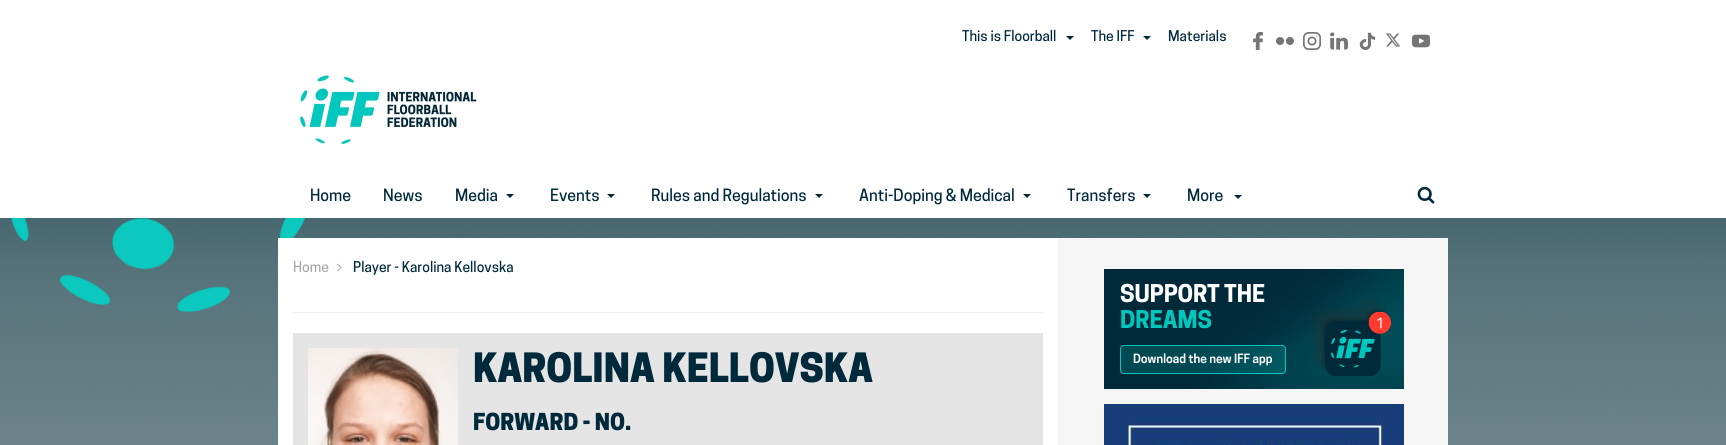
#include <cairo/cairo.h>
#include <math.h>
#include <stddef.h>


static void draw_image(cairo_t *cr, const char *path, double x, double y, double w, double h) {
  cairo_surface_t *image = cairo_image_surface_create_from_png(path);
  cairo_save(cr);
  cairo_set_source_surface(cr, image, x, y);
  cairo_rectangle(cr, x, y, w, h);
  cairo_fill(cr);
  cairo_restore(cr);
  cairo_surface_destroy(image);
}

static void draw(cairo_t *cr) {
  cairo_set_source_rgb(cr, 1, 1, 1);
  cairo_paint(cr);
  draw_image(cr, "images/1.png", 0, 218, 1726, 227);
  cairo_set_source_rgb(cr, 0, 42 / 255.0, 59 / 255.0);
  cairo_new_path(cr);
  cairo_move_to(cr, 1066, 36);
  cairo_line_to(cr, 1074, 36);
  cairo_line_to(cr, 1070, 40);
  cairo_close_path(cr);
  cairo_fill(cr);
  cairo_new_path(cr);
  cairo_move_to(cr, 1143, 36);
  cairo_line_to(cr, 1151, 36);
  cairo_line_to(cr, 1147, 40);
  cairo_close_path(cr);
  cairo_fill(cr);
  draw_image(cr, "images/2.png", 1253, 32, 10, 18);
  draw_image(cr, "images/3.png", 1276, 37, 18, 8);
  draw_image(cr, "images/4.png", 1303, 32, 18, 18);
  draw_image(cr, "images/5.png", 1330, 32, 18, 18);
  draw_image(cr, "images/6.png", 1359, 32, 17, 18);
  draw_image(cr, "images/7.png", 1386, 33, 15, 14);
  draw_image(cr, "images/8.png", 1412, 34, 18, 14);
  draw_image(cr, "images/9.png", 299, 74, 178, 71);
  cairo_new_path(cr);
  cairo_move_to(cr, 506, 194);
  cairo_line_to(cr, 514, 194);
  cairo_line_to(cr, 510, 198);
  cairo_close_path(cr);
  cairo_fill(cr);
  cairo_new_path(cr);
  cairo_move_to(cr, 607, 194);
  cairo_line_to(cr, 615, 194);
  cairo_line_to(cr, 611, 198);
  cairo_close_path(cr);
  cairo_fill(cr);
  cairo_new_path(cr);
  cairo_move_to(cr, 815, 194);
  cairo_line_to(cr, 823, 194);
  cairo_line_to(cr, 819, 198);
  cairo_close_path(cr);
  cairo_fill(cr);
  cairo_new_path(cr);
  cairo_move_to(cr, 1023, 194);
  cairo_line_to(cr, 1031, 194);
  cairo_line_to(cr, 1027, 198);
  cairo_close_path(cr);
  cairo_fill(cr);
  cairo_new_path(cr);
  cairo_move_to(cr, 1143, 194);
  cairo_line_to(cr, 1151, 194);
  cairo_line_to(cr, 1147, 198);
  cairo_close_path(cr);
  cairo_fill(cr);
  cairo_new_path(cr);
  cairo_move_to(cr, 1234, 195);
  cairo_line_to(cr, 1242, 195);
  cairo_line_to(cr, 1238, 199);
  cairo_close_path(cr);
  cairo_fill(cr);
  draw_image(cr, "images/10.png", 1417, 186, 18, 18);
  cairo_set_source_rgb(cr, 1, 1, 1);
  cairo_rectangle(cr, 278, 238, 780, 207);
  cairo_fill(cr);
  cairo_set_source_rgb(cr, 238 / 255.0, 238 / 255.0, 238 / 255.0);
  cairo_rectangle(cr, 293, 312, 750, 1);
  cairo_fill(cr);
  draw_image(cr, "images/11.png", 337, 263, 5, 9);
  cairo_set_source_rgb(cr, 229 / 255.0, 229 / 255.0, 229 / 255.0);
  cairo_rectangle(cr, 293, 333, 750, 112);
  cairo_fill(cr);
  draw_image(cr, "images/12.png", 308, 348, 150, 97);
  cairo_set_source_rgb(cr, 246 / 255.0, 246 / 255.0, 246 / 255.0);
  cairo_rectangle(cr, 1058, 238, 390, 207);
  cairo_fill(cr);
  draw_image(cr, "images/13.png", 1104, 269, 298, 120);
  draw_image(cr, "images/14.png", 1402, 269, 2, 120);
  draw_image(cr, "images/15.png", 1104, 404, 298, 41);
  draw_image(cr, "images/16.png", 1402, 404, 2, 41);
  cairo_select_font_face(cr, "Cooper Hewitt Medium", CAIRO_FONT_SLANT_NORMAL, CAIRO_FONT_WEIGHT_NORMAL);
  cairo_set_font_size(cr, 14);
  cairo_set_source_rgb(cr, 0, 42 / 255.0, 59 / 255.0);
  cairo_move_to(cr, 962, 41);
  cairo_show_text(cr, "This is Floorball");
  cairo_move_to(cr, 1091, 41);
  cairo_show_text(cr, "The IFF");
  cairo_set_source_rgb(cr, 1, 1, 1);
  cairo_rectangle(cr, 1134, 30, 1, 2);
  cairo_fill(cr);
  cairo_set_source_rgb(cr, 0, 42 / 255.0, 59 / 255.0);
  cairo_move_to(cr, 1168, 41);
  cairo_show_text(cr, "Materials");
  cairo_set_font_size(cr, 16);
  cairo_move_to(cr, 310, 201);
  cairo_show_text(cr, "Home");
  cairo_move_to(cr, 383, 201);
  cairo_show_text(cr, "News");
  cairo_move_to(cr, 455, 201);
  cairo_show_text(cr, "Media");
  cairo_move_to(cr, 550, 201);
  cairo_show_text(cr, "Events");
  cairo_move_to(cr, 651, 201);
  cairo_show_text(cr, "Rules and Regulations");
  cairo_move_to(cr, 859, 201);
  cairo_show_text(cr, "Anti-Doping & Medical");
  cairo_move_to(cr, 1067, 201);
  cairo_show_text(cr, "Transfers");
  cairo_move_to(cr, 1187, 201);
  cairo_show_text(cr, "More");
  cairo_set_font_size(cr, 14);
  cairo_set_source_rgb(cr, 170 / 255.0, 170 / 255.0, 170 / 255.0);
  cairo_move_to(cr, 293, 272);
  cairo_show_text(cr, "Home");
  cairo_set_source_rgb(cr, 0, 42 / 255.0, 59 / 255.0);
  cairo_move_to(cr, 353, 272);
  cairo_show_text(cr, "Player - Karolina Kellovska");
  cairo_select_font_face(cr, "Cooper Hewitt Black", CAIRO_FONT_SLANT_NORMAL, CAIRO_FONT_WEIGHT_NORMAL);
  cairo_set_font_size(cr, 38);
  cairo_move_to(cr, 473, 382);
  cairo_show_text(cr, "KAROLINA KELLOVSKA");
  cairo_set_font_size(cr, 22);
  cairo_move_to(cr, 473, 430);
  cairo_show_text(cr, "FORWARD - NO.");
}

int main(void) {
  cairo_surface_t *surface = cairo_image_surface_create(CAIRO_FORMAT_RGB24, 1726, 445);
  cairo_t *cr = cairo_create(surface);
  cairo_font_options_t *options = cairo_font_options_create();
  cairo_font_options_set_hint_metrics(options, CAIRO_HINT_METRICS_OFF);
  cairo_font_options_set_hint_style(options, CAIRO_HINT_STYLE_NONE);
  cairo_set_font_options(cr, options);
  cairo_set_miter_limit(cr, 4);
  draw(cr);
  cairo_surface_write_to_png(surface, "out.png");
  cairo_font_options_destroy(options);
  cairo_destroy(cr);
  cairo_surface_destroy(surface);
  return 0;
}
